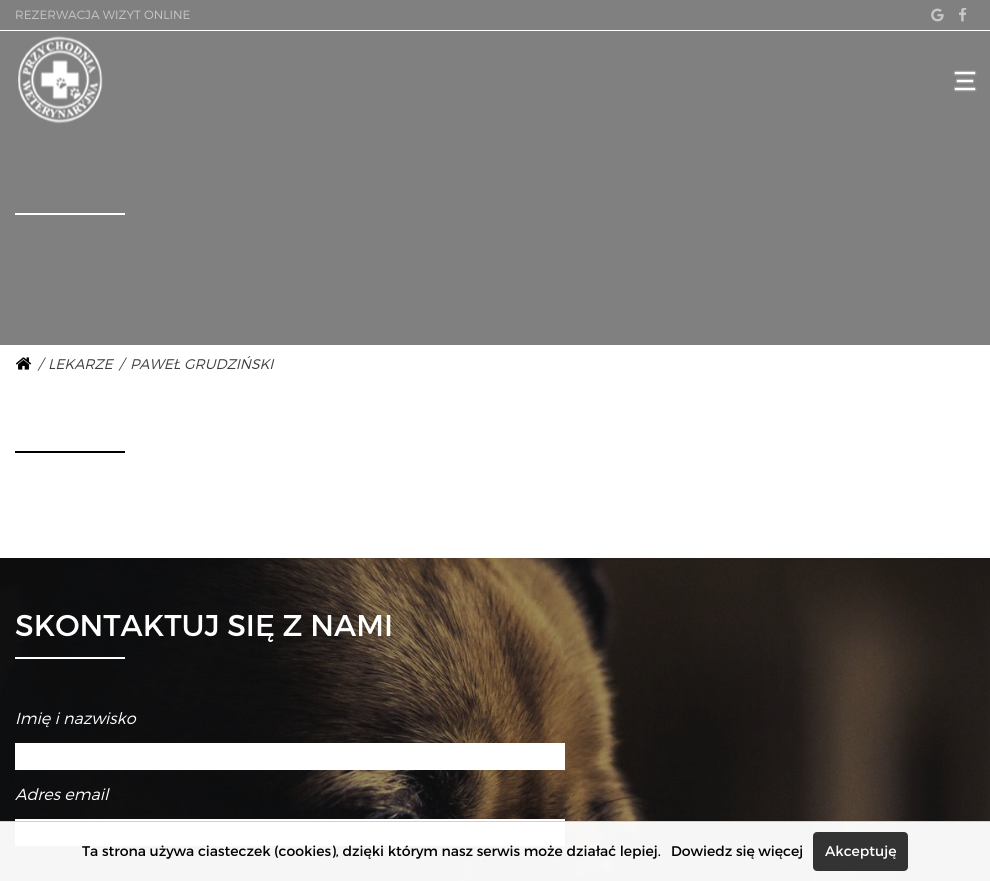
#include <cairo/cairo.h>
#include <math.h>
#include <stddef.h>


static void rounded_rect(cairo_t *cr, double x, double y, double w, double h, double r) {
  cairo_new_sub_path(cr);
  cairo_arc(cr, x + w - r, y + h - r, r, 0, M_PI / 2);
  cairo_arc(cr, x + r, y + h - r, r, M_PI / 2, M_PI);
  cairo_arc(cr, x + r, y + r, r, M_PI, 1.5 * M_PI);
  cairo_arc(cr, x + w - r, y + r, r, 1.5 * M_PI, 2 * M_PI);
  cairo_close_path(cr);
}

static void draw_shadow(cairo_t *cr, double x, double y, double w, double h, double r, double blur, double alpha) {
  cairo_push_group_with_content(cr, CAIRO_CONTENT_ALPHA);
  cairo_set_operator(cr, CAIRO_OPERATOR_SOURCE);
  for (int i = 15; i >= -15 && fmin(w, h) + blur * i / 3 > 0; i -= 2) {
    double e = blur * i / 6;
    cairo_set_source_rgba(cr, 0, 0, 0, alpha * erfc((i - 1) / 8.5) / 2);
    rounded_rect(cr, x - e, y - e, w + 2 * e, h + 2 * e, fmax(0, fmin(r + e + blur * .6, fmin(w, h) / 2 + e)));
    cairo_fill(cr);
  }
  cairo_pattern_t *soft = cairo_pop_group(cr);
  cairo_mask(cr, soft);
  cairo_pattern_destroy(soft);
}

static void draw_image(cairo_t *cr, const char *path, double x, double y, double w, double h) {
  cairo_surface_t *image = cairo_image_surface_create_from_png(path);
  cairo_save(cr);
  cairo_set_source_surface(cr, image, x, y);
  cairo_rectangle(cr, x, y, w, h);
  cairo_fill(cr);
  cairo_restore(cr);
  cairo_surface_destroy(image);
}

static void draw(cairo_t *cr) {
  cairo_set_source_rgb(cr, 1, 1, 1);
  cairo_paint(cr);
  cairo_set_source_rgb(cr, 128 / 255.0, 128 / 255.0, 128 / 255.0);
  cairo_rectangle(cr, 0, 0, 990, 345);
  cairo_fill(cr);
  cairo_set_source_rgb(cr, 1, 1, 1);
  cairo_rectangle(cr, 0, 30, 990, 1);
  cairo_fill(cr);
  draw_image(cr, "images/1.png", 931, 8, 13, 14);
  draw_image(cr, "images/2.png", 959, 8, 8, 14);
  draw_image(cr, "images/3.png", 18, 36, 85, 88);
  cairo_set_source_rgb(cr, 1, 1, 1);
  draw_shadow(cr, 955, 72, 20, 2, 0, 1, 1);
  cairo_set_source_rgb(cr, 1, 1, 1);
  cairo_rectangle(cr, 955, 72, 20, 2);
  cairo_fill(cr);
  cairo_set_source_rgb(cr, 1, 1, 1);
  draw_shadow(cr, 957, 80, 16, 2, 0, 1, 1);
  cairo_set_source_rgb(cr, 1, 1, 1);
  cairo_rectangle(cr, 957, 80, 16, 2);
  cairo_fill(cr);
  cairo_set_source_rgb(cr, 1, 1, 1);
  draw_shadow(cr, 955, 88, 20, 2, 0, 1, 1);
  cairo_set_source_rgb(cr, 1, 1, 1);
  cairo_rectangle(cr, 955, 88, 20, 2);
  cairo_fill(cr);
  cairo_rectangle(cr, 15, 213, 110, 2);
  cairo_fill(cr);
  draw_image(cr, "images/4.png", 15, 357, 17, 13);
  cairo_set_source_rgb(cr, 0, 0, 0);
  cairo_rectangle(cr, 15, 451, 110, 2);
  cairo_fill(cr);
  draw_image(cr, "images/5.png", 0, 558, 990, 323);
  cairo_set_source_rgb(cr, 1, 1, 1);
  cairo_rectangle(cr, 15, 657, 110, 2);
  cairo_fill(cr);
  cairo_rectangle(cr, 15, 743, 550, 27);
  cairo_fill(cr);
  cairo_rectangle(cr, 15, 819, 550, 27);
  cairo_fill(cr);
  cairo_set_source_rgba(cr, 1, 1, 1, 0.96);
  cairo_rectangle(cr, 0, 822, 990, 59);
  cairo_fill(cr);
  cairo_set_source_rgb(cr, 211 / 255.0, 208 / 255.0, 208 / 255.0);
  cairo_rectangle(cr, 0, 821, 990, 1);
  cairo_fill(cr);
  cairo_set_source_rgb(cr, 51 / 255.0, 51 / 255.0, 51 / 255.0);
  rounded_rect(cr, 814, 833, 93, 37, 3);
  cairo_fill_preserve(cr);
  cairo_stroke(cr);
  cairo_select_font_face(cr, "Montserrat Light", CAIRO_FONT_SLANT_NORMAL, CAIRO_FONT_WEIGHT_NORMAL);
  cairo_set_font_size(cr, 12);
  cairo_set_source_rgb(cr, 198 / 255.0, 198 / 255.0, 198 / 255.0);
  cairo_move_to(cr, 15, 19);
  cairo_show_text(cr, "REZERWACJA WIZYT ONLINE");
  cairo_select_font_face(cr, "Montserrat Light", CAIRO_FONT_SLANT_ITALIC, CAIRO_FONT_WEIGHT_NORMAL);
  cairo_set_font_size(cr, 14);
  cairo_set_source_rgb(cr, 62 / 255.0, 62 / 255.0, 62 / 255.0);
  cairo_move_to(cr, 38, 369);
  cairo_show_text(cr, "/");
  cairo_move_to(cr, 48, 369);
  cairo_show_text(cr, "LEKARZE");
  cairo_move_to(cr, 119, 369);
  cairo_show_text(cr, "/");
  cairo_move_to(cr, 130, 369);
  cairo_show_text(cr, "PAWEŁ GRUDZIŃSKI");
  cairo_select_font_face(cr, "Montserrat", CAIRO_FONT_SLANT_NORMAL, CAIRO_FONT_WEIGHT_NORMAL);
  cairo_set_font_size(cr, 30);
  cairo_set_source_rgb(cr, 1, 1, 1);
  cairo_move_to(cr, 15, 636);
  cairo_show_text(cr, "SKONTAKTUJ SIĘ Z NAMI");
  cairo_select_font_face(cr, "Montserrat Light", CAIRO_FONT_SLANT_ITALIC, CAIRO_FONT_WEIGHT_NORMAL);
  cairo_set_font_size(cr, 16);
  cairo_move_to(cr, 15, 724);
  cairo_show_text(cr, "Imię i nazwisko");
  cairo_move_to(cr, 15, 800);
  cairo_show_text(cr, "Adres email");
  cairo_select_font_face(cr, "Montserrat", CAIRO_FONT_SLANT_NORMAL, CAIRO_FONT_WEIGHT_NORMAL);
  cairo_set_font_size(cr, 14);
  cairo_set_source_rgb(cr, 0, 0, 0);
  cairo_move_to(cr, 82, 856);
  cairo_show_text(cr, "Ta strona używa ciasteczek (cookies), dzięki którym nasz serwis może działać lepiej.");
  cairo_move_to(cr, 671, 856);
  cairo_show_text(cr, "Dowiedz się więcej");
  cairo_set_source_rgb(cr, 1, 1, 1);
  cairo_move_to(cr, 825, 856);
  cairo_show_text(cr, "Akceptuję");
}

int main(void) {
  cairo_surface_t *surface = cairo_image_surface_create(CAIRO_FORMAT_RGB24, 990, 881);
  cairo_t *cr = cairo_create(surface);
  cairo_font_options_t *options = cairo_font_options_create();
  cairo_font_options_set_hint_metrics(options, CAIRO_HINT_METRICS_OFF);
  cairo_font_options_set_hint_style(options, CAIRO_HINT_STYLE_NONE);
  cairo_set_font_options(cr, options);
  cairo_set_miter_limit(cr, 4);
  draw(cr);
  cairo_surface_write_to_png(surface, "out.png");
  cairo_font_options_destroy(options);
  cairo_destroy(cr);
  cairo_surface_destroy(surface);
  return 0;
}
